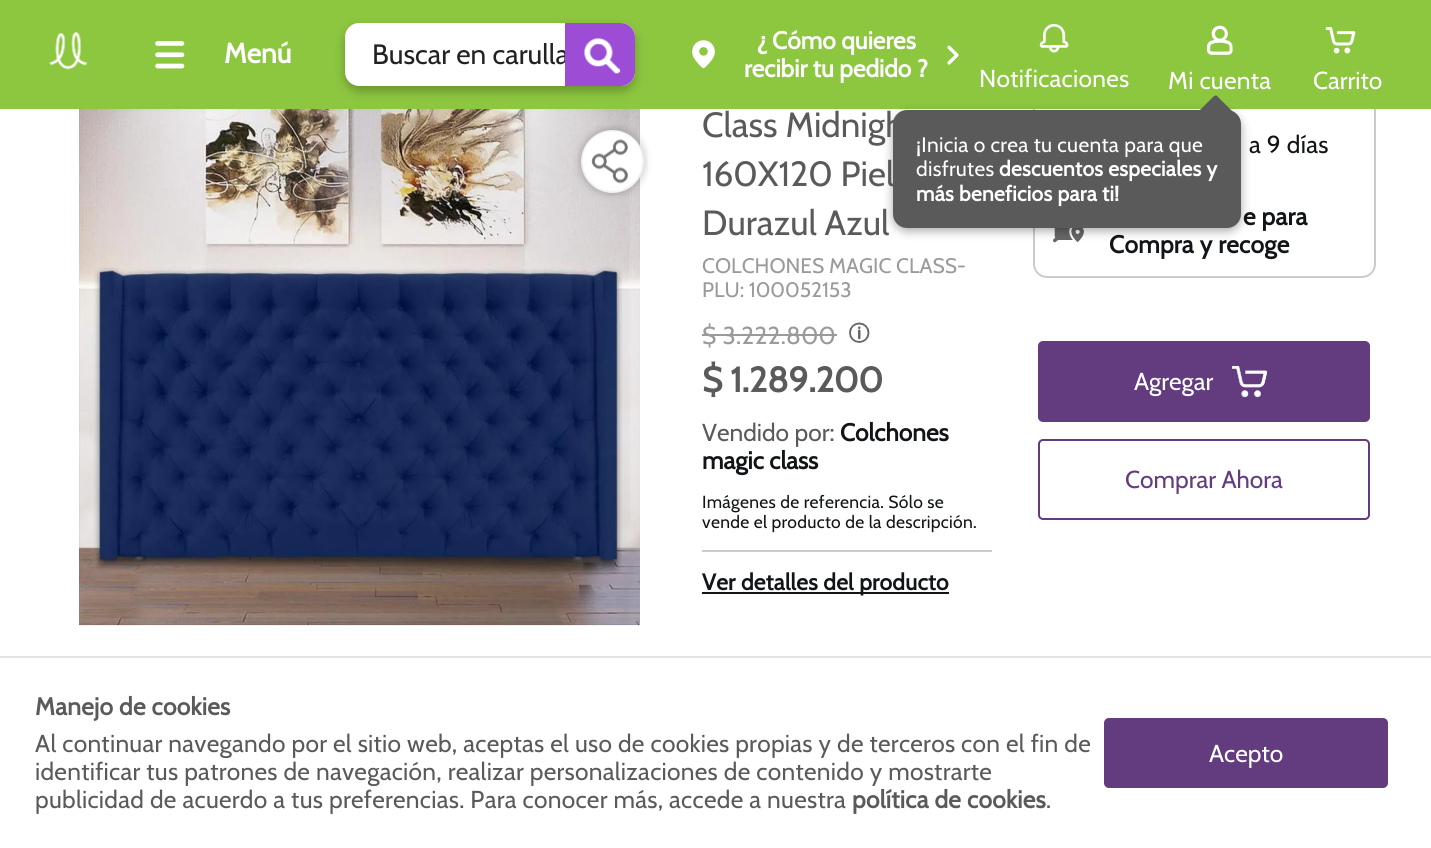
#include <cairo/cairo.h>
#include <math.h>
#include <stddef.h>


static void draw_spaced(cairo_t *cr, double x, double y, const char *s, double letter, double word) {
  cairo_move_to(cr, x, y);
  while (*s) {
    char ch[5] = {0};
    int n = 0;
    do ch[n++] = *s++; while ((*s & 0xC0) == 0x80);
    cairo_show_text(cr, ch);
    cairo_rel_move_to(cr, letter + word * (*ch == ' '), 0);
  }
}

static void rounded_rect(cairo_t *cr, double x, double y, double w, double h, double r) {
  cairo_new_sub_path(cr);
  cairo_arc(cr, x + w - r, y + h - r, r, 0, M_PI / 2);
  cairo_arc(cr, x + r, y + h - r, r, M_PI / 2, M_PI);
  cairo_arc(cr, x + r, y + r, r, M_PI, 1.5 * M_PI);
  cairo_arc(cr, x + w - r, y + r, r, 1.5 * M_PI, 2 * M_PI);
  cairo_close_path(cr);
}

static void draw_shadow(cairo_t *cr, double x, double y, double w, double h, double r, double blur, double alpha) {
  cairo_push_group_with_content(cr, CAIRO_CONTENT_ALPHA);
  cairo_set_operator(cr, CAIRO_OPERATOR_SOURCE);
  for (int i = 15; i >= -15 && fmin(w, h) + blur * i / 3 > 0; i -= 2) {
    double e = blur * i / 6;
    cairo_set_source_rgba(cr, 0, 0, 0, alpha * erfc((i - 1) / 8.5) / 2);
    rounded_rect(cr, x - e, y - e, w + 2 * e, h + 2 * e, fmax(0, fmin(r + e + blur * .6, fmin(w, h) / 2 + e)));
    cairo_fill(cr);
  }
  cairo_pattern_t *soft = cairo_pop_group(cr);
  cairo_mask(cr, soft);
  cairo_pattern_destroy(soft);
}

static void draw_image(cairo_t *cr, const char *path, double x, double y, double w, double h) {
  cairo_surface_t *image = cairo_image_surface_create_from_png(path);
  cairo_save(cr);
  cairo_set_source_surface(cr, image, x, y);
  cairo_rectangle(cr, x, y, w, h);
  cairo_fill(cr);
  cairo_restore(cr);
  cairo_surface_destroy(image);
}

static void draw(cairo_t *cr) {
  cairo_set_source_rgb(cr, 1, 1, 1);
  cairo_paint(cr);
  draw_image(cr, "images/9.png", 79, 109, 561, 517);
  rounded_rect(cr, 1034, 55, 341, 222, 13);
  cairo_set_source_rgb(cr, 204 / 255.0, 204 / 255.0, 204 / 255.0);
  cairo_stroke(cr);
  cairo_set_source_rgb(cr, 0, 0, 0);
  draw_shadow(cr, 0, 0, 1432, 109, 0, 2.5, 0.05);
  cairo_set_source_rgb(cr, 141 / 255.0, 198 / 255.0, 63 / 255.0);
  cairo_rectangle(cr, 0, 0, 1431, 109);
  cairo_fill(cr);
  draw_image(cr, "images/1.png", 49, 32, 39, 38);
  draw_image(cr, "images/2.png", 155, 41, 30, 28);
  cairo_set_source_rgb(cr, 1, 1, 1);
  rounded_rect(cr, 345, 23, 290, 63, 14);
  cairo_fill(cr);
  cairo_save(cr);
  cairo_set_fill_rule(cr, CAIRO_FILL_RULE_EVEN_ODD);
  cairo_new_path(cr);
  cairo_move_to(cr, 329, 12);
  cairo_line_to(cr, 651, 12);
  cairo_line_to(cr, 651, 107);
  cairo_line_to(cr, 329, 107);
  cairo_close_path(cr);
  cairo_move_to(cr, 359, 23);
  cairo_line_to(cr, 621, 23);
  cairo_curve_to(cr, 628.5, 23, 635, 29.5, 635, 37);
  cairo_line_to(cr, 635, 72);
  cairo_curve_to(cr, 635, 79.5, 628.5, 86, 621, 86);
  cairo_line_to(cr, 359, 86);
  cairo_curve_to(cr, 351.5, 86, 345, 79.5, 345, 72);
  cairo_line_to(cr, 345, 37);
  cairo_curve_to(cr, 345, 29.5, 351.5, 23, 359, 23);
  cairo_close_path(cr);
  cairo_clip(cr);
  cairo_set_source_rgb(cr, 0, 0, 0);
  draw_shadow(cr, 345, 28, 290, 63, 14, 5, 0.26);
  cairo_restore(cr);
  draw_image(cr, "images/4.png", 692, 40, 23, 29);
  draw_image(cr, "images/5.png", 947, 45, 12, 20);
  draw_image(cr, "images/6.png", 1039, 24, 30, 29);
  draw_image(cr, "images/7.png", 1206, 25, 27, 30);
  draw_image(cr, "images/12.png", 1053, 228, 31, 15);
  cairo_set_source_rgb(cr, 0, 0, 0);
  draw_shadow(cr, 893, 114, 348, 117, 14, 5, 0.34);
  cairo_set_source_rgb(cr, 90 / 255.0, 90 / 255.0, 90 / 255.0);
  rounded_rect(cr, 893, 110, 348, 118, 14);
  cairo_fill(cr);
  draw_image(cr, "images/8.png", 1325, 27, 31, 27);
  cairo_set_source_rgb(cr, 0, 0, 0);
  draw_shadow(cr, 581, 130, 63, 63, 31.5, 5, 0.16);
  cairo_set_source_rgb(cr, 1, 1, 1);
  cairo_arc(cr, 612.5, 161.5, 31.5, 0, 2 * M_PI);
  cairo_fill(cr);
  draw_image(cr, "images/10.png", 577, 126, 71, 70);
  cairo_set_source_rgb(cr, 154 / 255.0, 154 / 255.0, 154 / 255.0);
  cairo_rectangle(cr, 702, 334, 135, 2);
  cairo_fill(cr);
  draw_image(cr, "images/11.png", 849, 322, 21, 21);
  cairo_set_source_rgb(cr, 204 / 255.0, 204 / 255.0, 204 / 255.0);
  cairo_rectangle(cr, 702, 550, 290, 2);
  cairo_fill(cr);
  cairo_set_source_rgb(cr, 17 / 255.0, 21 / 255.0, 23 / 255.0);
  cairo_rectangle(cr, 702, 592, 247, 2);
  cairo_fill(cr);
  cairo_set_source_rgb(cr, 99 / 255.0, 59 / 255.0, 127 / 255.0);
  rounded_rect(cr, 1038, 341, 332, 81, 5);
  cairo_fill(cr);
  draw_image(cr, "images/13.png", 1232, 366, 35, 32);
  rounded_rect(cr, 1039, 440, 330, 79, 4);
  cairo_stroke(cr);
  cairo_set_source_rgb(cr, 227 / 255.0, 227 / 255.0, 227 / 255.0);
  cairo_rectangle(cr, 0, 656, 1431, 2);
  cairo_fill(cr);
  cairo_set_source_rgb(cr, 99 / 255.0, 59 / 255.0, 127 / 255.0);
  rounded_rect(cr, 1104, 718, 284, 70, 5);
  cairo_fill(cr);
  cairo_select_font_face(cr, "Cabin", CAIRO_FONT_SLANT_NORMAL, CAIRO_FONT_WEIGHT_BOLD);
  cairo_set_font_size(cr, 28);
  cairo_set_source_rgb(cr, 1, 1, 1);
  cairo_move_to(cr, 224, 63);
  cairo_show_text(cr, "Menú");
  cairo_select_font_face(cr, "Cabin", CAIRO_FONT_SLANT_NORMAL, CAIRO_FONT_WEIGHT_NORMAL);
  cairo_set_source_rgb(cr, 34 / 255.0, 34 / 255.0, 34 / 255.0);
  cairo_move_to(cr, 372, 64);
  cairo_show_text(cr, "Buscar en carulla");
  cairo_set_source_rgb(cr, 156 / 255.0, 76 / 255.0, 213 / 255.0);
  cairo_new_path(cr);
  cairo_move_to(cr, 565, 23);
  cairo_line_to(cr, 621, 23);
  cairo_curve_to(cr, 628.5, 23, 635, 29.5, 635, 37);
  cairo_line_to(cr, 635, 72);
  cairo_curve_to(cr, 635, 79.5, 628.5, 86, 621, 86);
  cairo_line_to(cr, 565, 86);
  cairo_close_path(cr);
  cairo_fill(cr);
  draw_image(cr, "images/3.png", 584, 38, 36, 36);
  cairo_select_font_face(cr, "Cabin", CAIRO_FONT_SLANT_NORMAL, CAIRO_FONT_WEIGHT_BOLD);
  cairo_set_font_size(cr, 24.5);
  cairo_set_source_rgb(cr, 1, 1, 1);
  cairo_move_to(cr, 757, 49);
  cairo_show_text(cr, "¿ Cómo quieres");
  cairo_move_to(cr, 744, 77);
  cairo_show_text(cr, "recibir tu pedido ?");
  cairo_select_font_face(cr, "Cabin", CAIRO_FONT_SLANT_NORMAL, CAIRO_FONT_WEIGHT_NORMAL);
  draw_spaced(cr, 979, 87, "Notificaciones", 0.28, 0);
  draw_spaced(cr, 1168, 89, "Mi cuenta", 0.28, 0);
  cairo_set_font_size(cr, 21);
  draw_spaced(cr, 916, 152, "¡Inicia o crea tu cuenta para que", 0.28, 0);
  cairo_set_source_rgb(cr, 90 / 255.0, 90 / 255.0, 90 / 255.0);
  cairo_new_path(cr);
  cairo_move_to(cr, 1218, 97);
  cairo_line_to(cr, 1238, 117);
  cairo_curve_to(cr, 1239, 118, 1239, 120, 1238, 122);
  cairo_line_to(cr, 1218, 141);
  cairo_curve_to(cr, 1217, 143, 1215, 143, 1213, 141);
  cairo_line_to(cr, 1193, 122);
  cairo_curve_to(cr, 1192, 120, 1192, 118, 1193, 117);
  cairo_line_to(cr, 1213, 97);
  cairo_curve_to(cr, 1215, 95, 1217, 95, 1218, 97);
  cairo_close_path(cr);
  cairo_fill(cr);
  cairo_set_source_rgb(cr, 1, 1, 1);
  draw_spaced(cr, 916, 176, "disfrutes", 0.28, 0);
  cairo_select_font_face(cr, "Cabin", CAIRO_FONT_SLANT_NORMAL, CAIRO_FONT_WEIGHT_BOLD);
  draw_spaced(cr, 999, 176, "descuentos especiales y", 0.28, 0);
  draw_spaced(cr, 916, 201, "más beneficios para ti!", 0.28, 0);
  cairo_select_font_face(cr, "Cabin", CAIRO_FONT_SLANT_NORMAL, CAIRO_FONT_WEIGHT_NORMAL);
  cairo_set_font_size(cr, 24.5);
  cairo_move_to(cr, 1313, 89);
  cairo_show_text(cr, "Carrito");
  cairo_set_font_size(cr, 35);
  cairo_set_source_rgb(cr, 90 / 255.0, 90 / 255.0, 90 / 255.0);
  cairo_move_to(cr, 702, 137);
  cairo_show_text(cr, "Class Midnigh");
  cairo_move_to(cr, 702, 186);
  cairo_show_text(cr, "160X120 Piel");
  cairo_move_to(cr, 702, 235);
  cairo_show_text(cr, "Durazul Azul");
  cairo_set_font_size(cr, 21);
  cairo_set_source_rgb(cr, 154 / 255.0, 154 / 255.0, 154 / 255.0);
  cairo_move_to(cr, 702, 273);
  cairo_show_text(cr, "COLCHONES MAGIC CLASS-");
  cairo_move_to(cr, 702, 297);
  cairo_show_text(cr, "PLU: 100052153");
  cairo_set_font_size(cr, 24.5);
  draw_spaced(cr, 702, 344, "$ 3.222.800", 0.28, 0);
  cairo_select_font_face(cr, "Cabin", CAIRO_FONT_SLANT_NORMAL, CAIRO_FONT_WEIGHT_BOLD);
  cairo_set_font_size(cr, 35);
  cairo_set_source_rgb(cr, 90 / 255.0, 90 / 255.0, 90 / 255.0);
  cairo_move_to(cr, 702, 392);
  cairo_show_text(cr, "$ 1.289.200");
  cairo_select_font_face(cr, "Cabin", CAIRO_FONT_SLANT_NORMAL, CAIRO_FONT_WEIGHT_NORMAL);
  cairo_set_font_size(cr, 24.5);
  cairo_move_to(cr, 702, 441);
  cairo_show_text(cr, "Vendido por:");
  cairo_select_font_face(cr, "Cabin", CAIRO_FONT_SLANT_NORMAL, CAIRO_FONT_WEIGHT_BOLD);
  cairo_set_source_rgb(cr, 17 / 255.0, 21 / 255.0, 23 / 255.0);
  cairo_move_to(cr, 840, 441);
  cairo_show_text(cr, "Colchones");
  cairo_move_to(cr, 702, 469);
  cairo_show_text(cr, "magic class");
  cairo_select_font_face(cr, "Cabin", CAIRO_FONT_SLANT_NORMAL, CAIRO_FONT_WEIGHT_NORMAL);
  cairo_set_font_size(cr, 17.5);
  draw_spaced(cr, 702, 508, "Imágenes de referencia. Sólo se", 0.28, 0);
  draw_spaced(cr, 702, 528, "vende el producto de la descripción.", 0.28, 0);
  cairo_select_font_face(cr, "Cabin", CAIRO_FONT_SLANT_NORMAL, CAIRO_FONT_WEIGHT_BOLD);
  cairo_set_font_size(cr, 22.75);
  draw_spaced(cr, 702, 590, "Ver detalles del producto", 0.28, 0);
  cairo_select_font_face(cr, "Cabin", CAIRO_FONT_SLANT_NORMAL, CAIRO_FONT_WEIGHT_NORMAL);
  cairo_set_font_size(cr, 24.5);
  draw_spaced(cr, 1249, 153, "a 9 días", 0.28, 0);
  cairo_select_font_face(cr, "Cabin", CAIRO_FONT_SLANT_NORMAL, CAIRO_FONT_WEIGHT_BOLD);
  draw_spaced(cr, 1243, 225, "e para", 0.28, 0);
  draw_spaced(cr, 1109, 253, "Compra y recoge", 0.28, 0);
  cairo_select_font_face(cr, "Cabin", CAIRO_FONT_SLANT_NORMAL, CAIRO_FONT_WEIGHT_NORMAL);
  cairo_set_source_rgb(cr, 1, 1, 1);
  cairo_move_to(cr, 1134, 390);
  cairo_show_text(cr, "Agregar");
  cairo_set_source_rgb(cr, 99 / 255.0, 59 / 255.0, 127 / 255.0);
  cairo_move_to(cr, 1125, 488);
  cairo_show_text(cr, "Comprar Ahora");
  cairo_select_font_face(cr, "Cabin", CAIRO_FONT_SLANT_NORMAL, CAIRO_FONT_WEIGHT_BOLD);
  cairo_set_source_rgb(cr, 90 / 255.0, 90 / 255.0, 90 / 255.0);
  draw_spaced(cr, 35, 715, "Manejo de cookies", 0.28, 0);
  cairo_select_font_face(cr, "Cabin", CAIRO_FONT_SLANT_NORMAL, CAIRO_FONT_WEIGHT_NORMAL);
  draw_spaced(cr, 35, 752, "Al continuar navegando por el sitio web, aceptas el uso de cookies propias y de terceros con el fin de", 0.28, 0);
  draw_spaced(cr, 35, 780, "identificar tus patrones de navegación, realizar personalizaciones de contenido y mostrarte", 0.28, 0);
  draw_spaced(cr, 35, 808, "publicidad de acuerdo a tus preferencias. Para conocer más, accede a nuestra", 0.28, 0);
  cairo_select_font_face(cr, "Cabin", CAIRO_FONT_SLANT_NORMAL, CAIRO_FONT_WEIGHT_BOLD);
  draw_spaced(cr, 852, 808, "política de cookies", 0.28, 0);
  cairo_select_font_face(cr, "Cabin", CAIRO_FONT_SLANT_NORMAL, CAIRO_FONT_WEIGHT_NORMAL);
  draw_spaced(cr, 1046, 808, ".", 0.28, 0);
  cairo_set_source_rgb(cr, 1, 1, 1);
  cairo_move_to(cr, 1209, 762);
  cairo_show_text(cr, "Acepto");
}

int main(void) {
  cairo_surface_t *surface = cairo_image_surface_create(CAIRO_FORMAT_RGB24, 1431, 848);
  cairo_t *cr = cairo_create(surface);
  cairo_font_options_t *options = cairo_font_options_create();
  cairo_font_options_set_hint_metrics(options, CAIRO_HINT_METRICS_OFF);
  cairo_font_options_set_hint_style(options, CAIRO_HINT_STYLE_NONE);
  cairo_set_font_options(cr, options);
  cairo_set_miter_limit(cr, 4);
  draw(cr);
  cairo_surface_write_to_png(surface, "out.png");
  cairo_font_options_destroy(options);
  cairo_destroy(cr);
  cairo_surface_destroy(surface);
  return 0;
}
